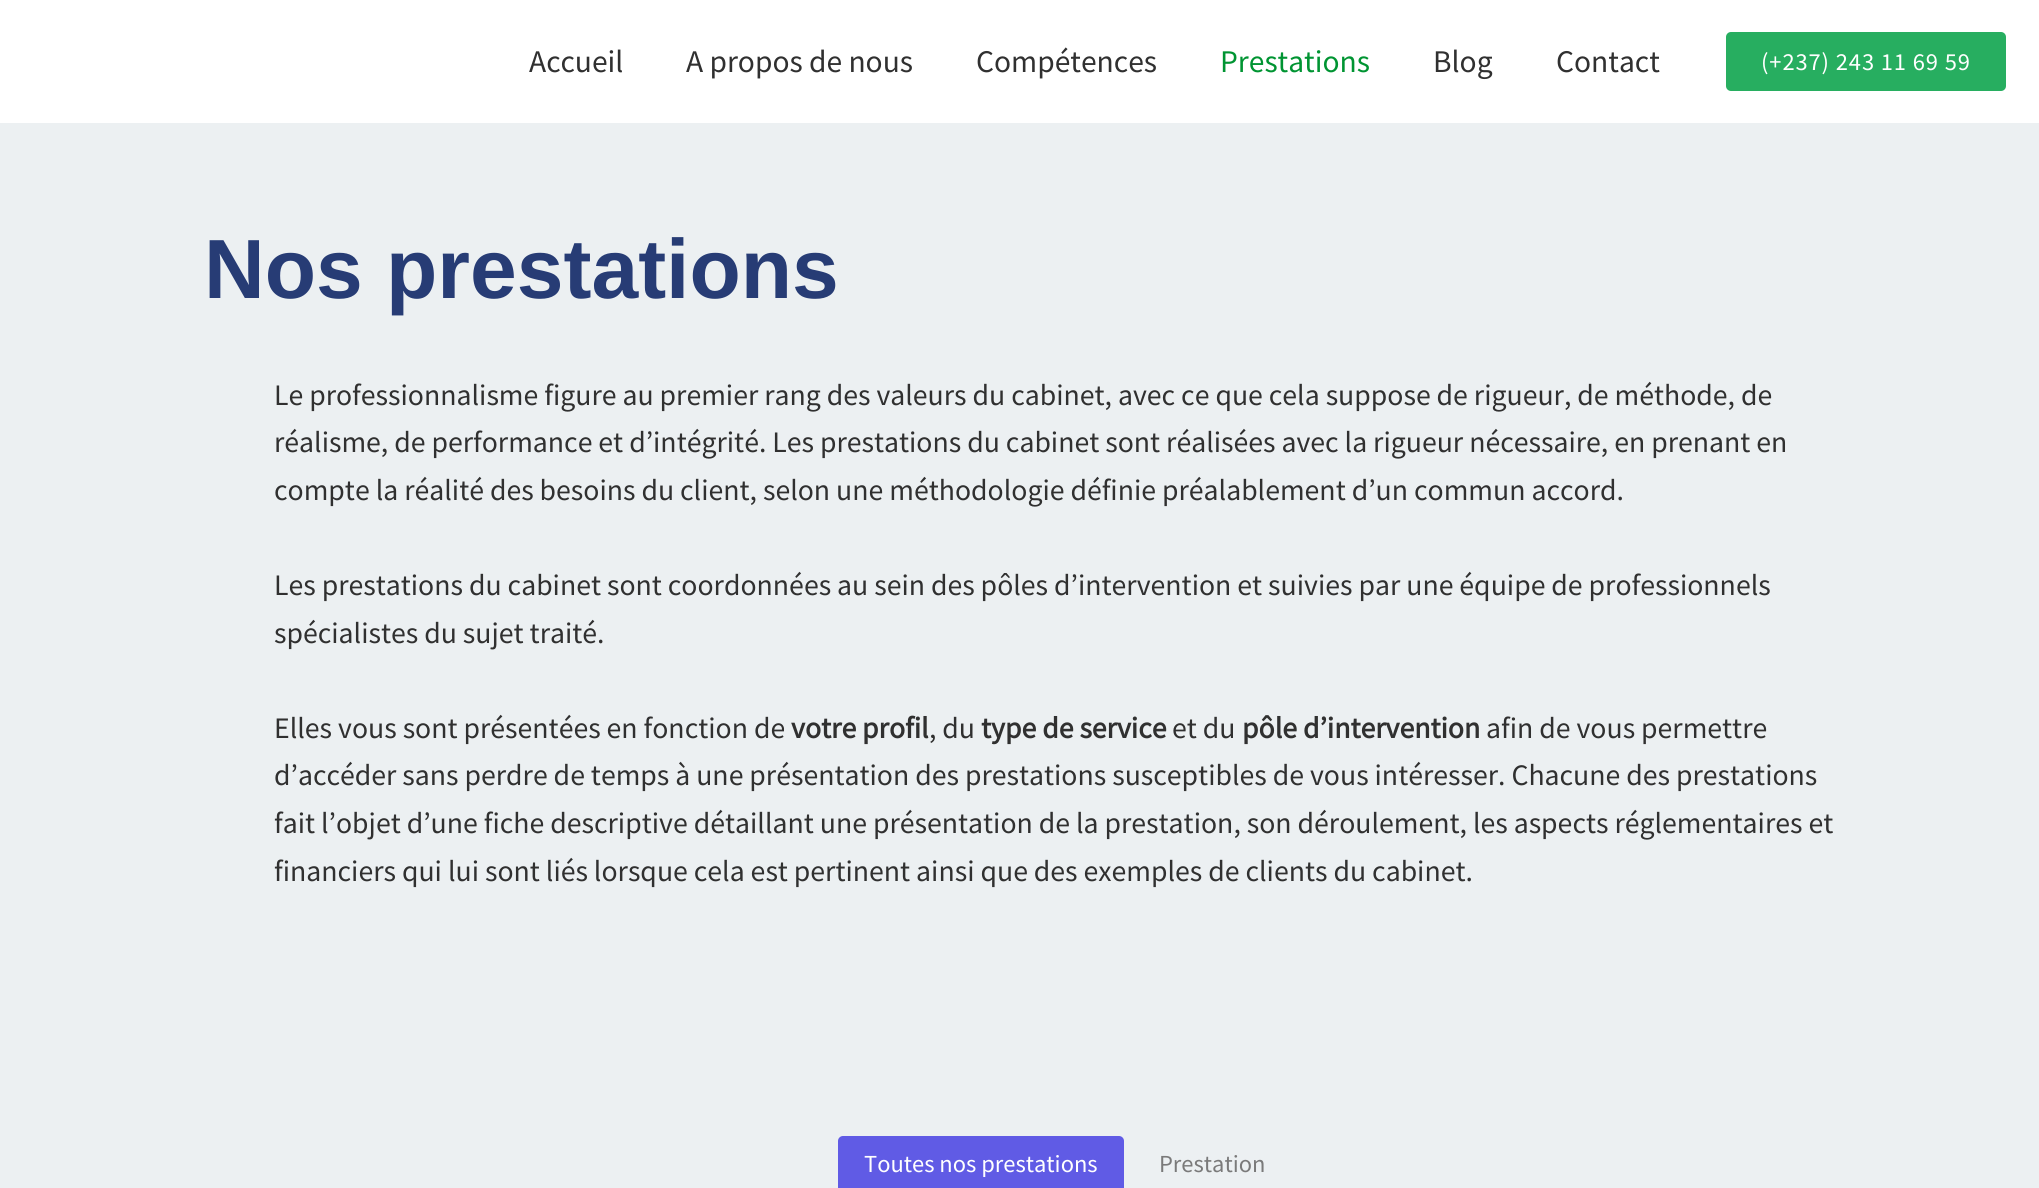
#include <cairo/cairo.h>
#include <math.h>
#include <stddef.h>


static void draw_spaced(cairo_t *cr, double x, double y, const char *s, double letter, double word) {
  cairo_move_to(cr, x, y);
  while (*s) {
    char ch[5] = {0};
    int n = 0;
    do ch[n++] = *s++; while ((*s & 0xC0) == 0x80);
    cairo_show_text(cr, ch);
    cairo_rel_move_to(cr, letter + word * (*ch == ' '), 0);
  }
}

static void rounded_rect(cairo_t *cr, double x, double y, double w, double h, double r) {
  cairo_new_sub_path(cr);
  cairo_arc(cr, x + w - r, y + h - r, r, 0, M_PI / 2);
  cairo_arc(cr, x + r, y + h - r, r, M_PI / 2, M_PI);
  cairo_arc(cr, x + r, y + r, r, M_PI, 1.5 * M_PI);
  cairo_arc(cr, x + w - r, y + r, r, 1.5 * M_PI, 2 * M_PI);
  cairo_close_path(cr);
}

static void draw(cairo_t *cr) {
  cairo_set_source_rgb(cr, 236 / 255.0, 240 / 255.0, 242 / 255.0);
  cairo_paint(cr);
  cairo_set_source_rgb(cr, 1, 1, 1);
  cairo_rectangle(cr, 0, 0, 2039, 123);
  cairo_fill(cr);
  cairo_set_source_rgb(cr, 39 / 255.0, 174 / 255.0, 96 / 255.0);
  rounded_rect(cr, 1726, 32, 280, 59, 5);
  cairo_fill(cr);
  cairo_set_source_rgb(cr, 96 / 255.0, 91 / 255.0, 229 / 255.0);
  rounded_rect(cr, 838, 1136, 286, 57, 5);
  cairo_fill(cr);
  cairo_select_font_face(cr, "Source Sans Pro", CAIRO_FONT_SLANT_NORMAL, CAIRO_FONT_WEIGHT_NORMAL);
  cairo_set_font_size(cr, 31.5);
  cairo_set_source_rgb(cr, 48 / 255.0, 48 / 255.0, 48 / 255.0);
  cairo_move_to(cr, 529, 72);
  cairo_show_text(cr, "Accueil");
  cairo_move_to(cr, 686, 72);
  cairo_show_text(cr, "A propos de nous");
  cairo_move_to(cr, 976, 72);
  cairo_show_text(cr, "Compétences");
  cairo_set_source_rgb(cr, 0, 148 / 255.0, 50 / 255.0);
  cairo_move_to(cr, 1220, 72);
  cairo_show_text(cr, "Prestations");
  cairo_set_source_rgb(cr, 48 / 255.0, 48 / 255.0, 48 / 255.0);
  cairo_move_to(cr, 1433, 72);
  cairo_show_text(cr, "Blog");
  cairo_move_to(cr, 1556, 72);
  cairo_show_text(cr, "Contact");
  cairo_set_font_size(cr, 24.5);
  cairo_set_source_rgb(cr, 1, 1, 1);
  draw_spaced(cr, 1761, 70, "(+237) 243 11 69 59", 0.9, 0);
  cairo_select_font_face(cr, "Liberation Sans", CAIRO_FONT_SLANT_NORMAL, CAIRO_FONT_WEIGHT_BOLD);
  cairo_set_font_size(cr, 84);
  cairo_set_source_rgb(cr, 39 / 255.0, 60 / 255.0, 117 / 255.0);
  cairo_move_to(cr, 204, 298);
  cairo_show_text(cr, "Nos prestations");
  cairo_select_font_face(cr, "Source Sans Pro", CAIRO_FONT_SLANT_NORMAL, CAIRO_FONT_WEIGHT_NORMAL);
  cairo_set_font_size(cr, 29.75);
  cairo_set_source_rgb(cr, 48 / 255.0, 48 / 255.0, 48 / 255.0);
  cairo_move_to(cr, 274, 405);
  cairo_show_text(cr, "Le professionnalisme figure au premier rang des valeurs du cabinet, avec ce que cela suppose de rigueur, de méthode, de");
  cairo_move_to(cr, 274, 452);
  cairo_show_text(cr, "réalisme, de performance et d’intégrité. Les prestations du cabinet sont réalisées avec la rigueur nécessaire, en prenant en");
  cairo_move_to(cr, 274, 500);
  cairo_show_text(cr, "compte la réalité des besoins du client, selon une méthodologie définie préalablement d’un commun accord.");
  cairo_move_to(cr, 274, 595);
  cairo_show_text(cr, "Les prestations du cabinet sont coordonnées au sein des pôles d’intervention et suivies par une équipe de professionnels");
  cairo_move_to(cr, 274, 643);
  cairo_show_text(cr, "spécialistes du sujet traité.");
  cairo_move_to(cr, 274, 738);
  cairo_show_text(cr, "Elles vous sont présentées en fonction de");
  cairo_select_font_face(cr, "Source Sans Pro", CAIRO_FONT_SLANT_NORMAL, CAIRO_FONT_WEIGHT_BOLD);
  cairo_move_to(cr, 791, 738);
  cairo_show_text(cr, "votre profil");
  cairo_select_font_face(cr, "Source Sans Pro", CAIRO_FONT_SLANT_NORMAL, CAIRO_FONT_WEIGHT_NORMAL);
  cairo_move_to(cr, 929, 738);
  cairo_show_text(cr, ", du");
  cairo_select_font_face(cr, "Source Sans Pro", CAIRO_FONT_SLANT_NORMAL, CAIRO_FONT_WEIGHT_BOLD);
  cairo_move_to(cr, 981, 738);
  cairo_show_text(cr, "type de service");
  cairo_select_font_face(cr, "Source Sans Pro", CAIRO_FONT_SLANT_NORMAL, CAIRO_FONT_WEIGHT_NORMAL);
  cairo_move_to(cr, 1172, 738);
  cairo_show_text(cr, "et du");
  cairo_select_font_face(cr, "Source Sans Pro", CAIRO_FONT_SLANT_NORMAL, CAIRO_FONT_WEIGHT_BOLD);
  cairo_move_to(cr, 1242, 738);
  cairo_show_text(cr, "pôle d’intervention");
  cairo_select_font_face(cr, "Source Sans Pro", CAIRO_FONT_SLANT_NORMAL, CAIRO_FONT_WEIGHT_NORMAL);
  cairo_move_to(cr, 1486, 738);
  cairo_show_text(cr, "afin de vous permettre");
  cairo_move_to(cr, 274, 785);
  cairo_show_text(cr, "d’accéder sans perdre de temps à une présentation des prestations susceptibles de vous intéresser. Chacune des prestations");
  cairo_move_to(cr, 274, 833);
  cairo_show_text(cr, "fait l’objet d’une fiche descriptive détaillant une présentation de la prestation, son déroulement, les aspects réglementaires et");
  cairo_move_to(cr, 274, 881);
  cairo_show_text(cr, "financiers qui lui sont liés lorsque cela est pertinent ainsi que des exemples de clients du cabinet.");
  cairo_set_font_size(cr, 24.5);
  cairo_set_source_rgb(cr, 1, 1, 1);
  cairo_move_to(cr, 864, 1172);
  cairo_show_text(cr, "Toutes nos prestations");
  cairo_set_source_rgb(cr, 122 / 255.0, 122 / 255.0, 122 / 255.0);
  cairo_move_to(cr, 1159, 1172);
  cairo_show_text(cr, "Prestation");
}

int main(void) {
  cairo_surface_t *surface = cairo_image_surface_create(CAIRO_FORMAT_RGB24, 2039, 1188);
  cairo_t *cr = cairo_create(surface);
  cairo_font_options_t *options = cairo_font_options_create();
  cairo_font_options_set_hint_metrics(options, CAIRO_HINT_METRICS_OFF);
  cairo_font_options_set_hint_style(options, CAIRO_HINT_STYLE_NONE);
  cairo_set_font_options(cr, options);
  cairo_set_miter_limit(cr, 4);
  draw(cr);
  cairo_surface_write_to_png(surface, "out.png");
  cairo_font_options_destroy(options);
  cairo_destroy(cr);
  cairo_surface_destroy(surface);
  return 0;
}
